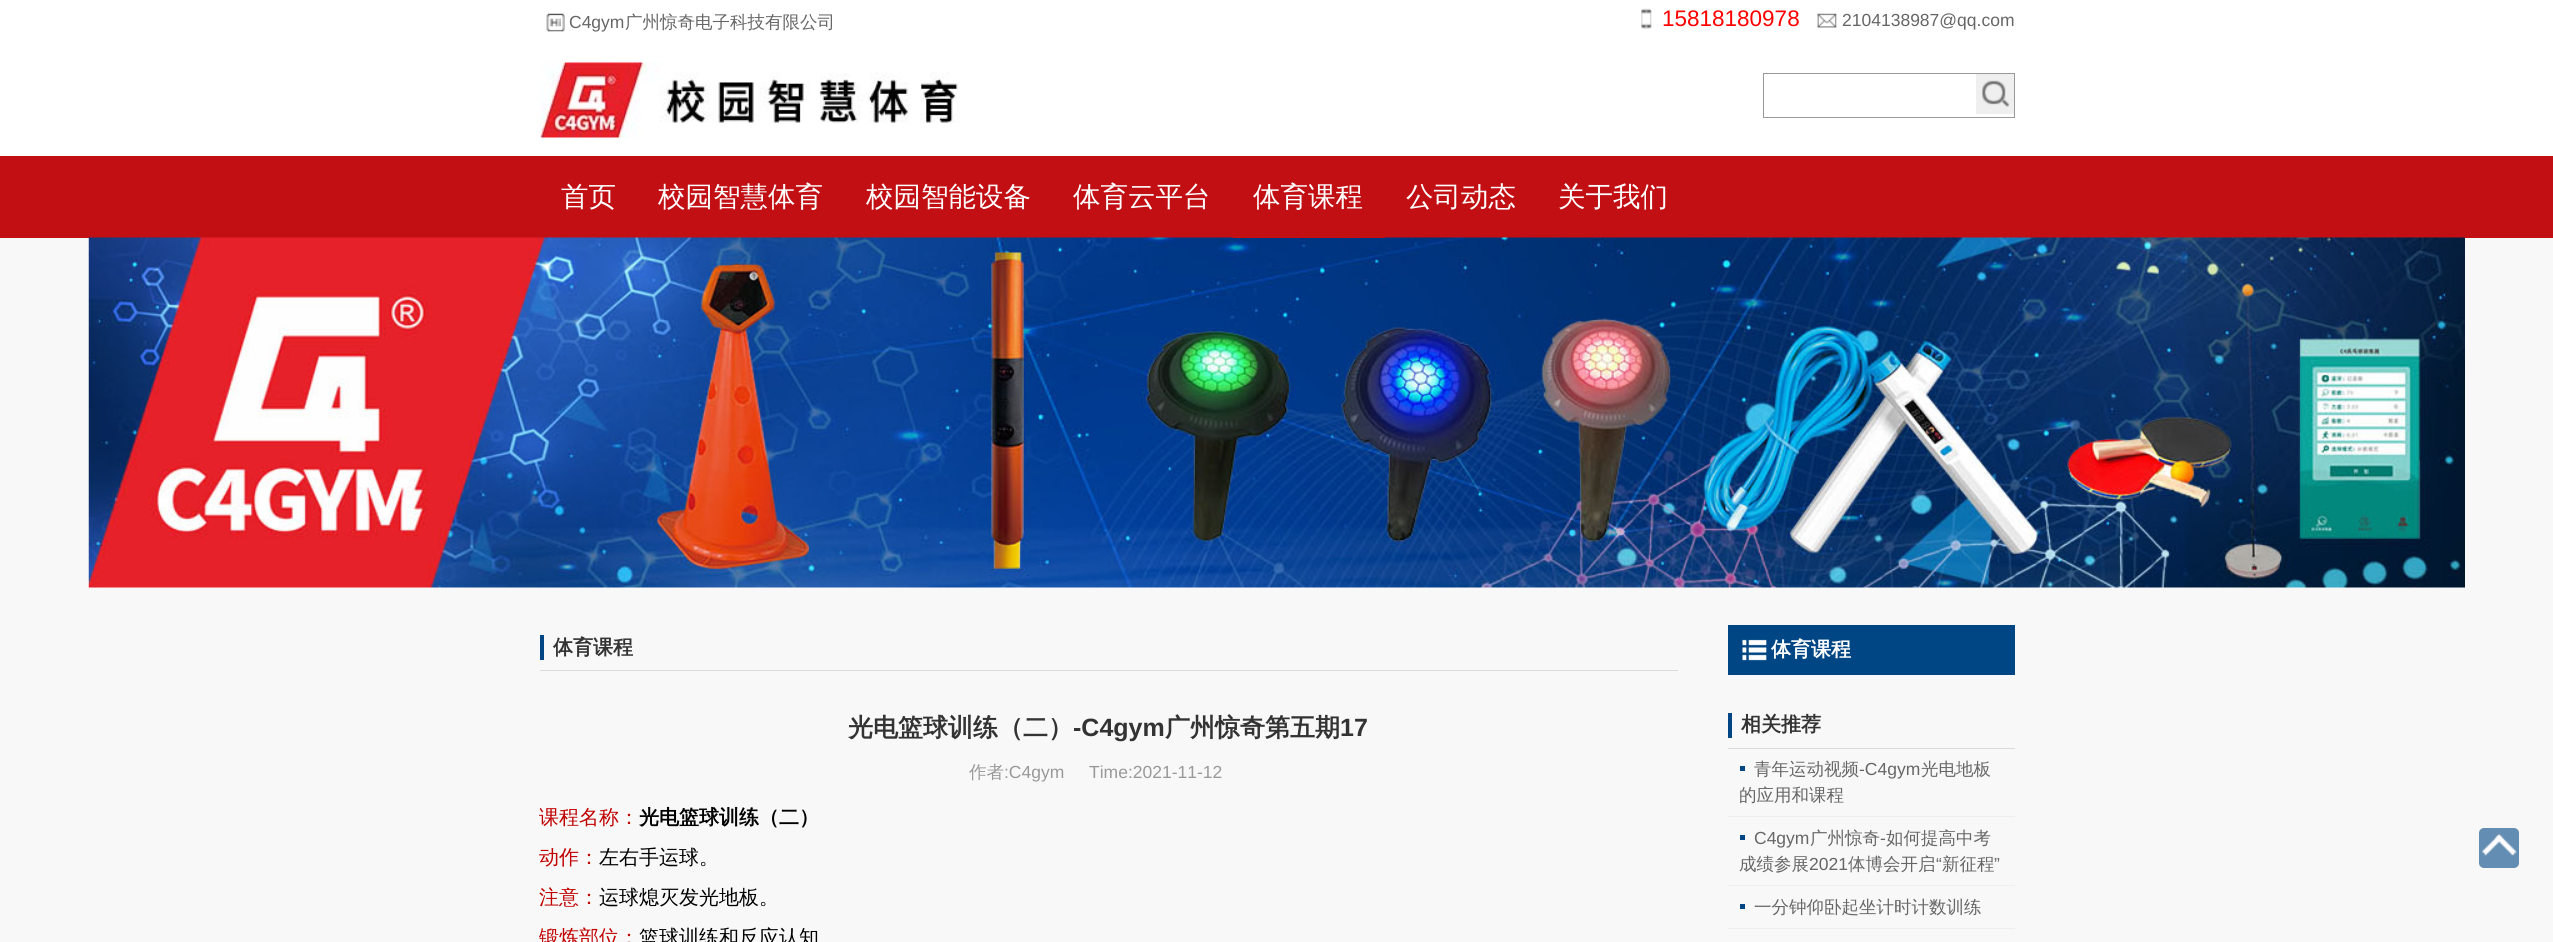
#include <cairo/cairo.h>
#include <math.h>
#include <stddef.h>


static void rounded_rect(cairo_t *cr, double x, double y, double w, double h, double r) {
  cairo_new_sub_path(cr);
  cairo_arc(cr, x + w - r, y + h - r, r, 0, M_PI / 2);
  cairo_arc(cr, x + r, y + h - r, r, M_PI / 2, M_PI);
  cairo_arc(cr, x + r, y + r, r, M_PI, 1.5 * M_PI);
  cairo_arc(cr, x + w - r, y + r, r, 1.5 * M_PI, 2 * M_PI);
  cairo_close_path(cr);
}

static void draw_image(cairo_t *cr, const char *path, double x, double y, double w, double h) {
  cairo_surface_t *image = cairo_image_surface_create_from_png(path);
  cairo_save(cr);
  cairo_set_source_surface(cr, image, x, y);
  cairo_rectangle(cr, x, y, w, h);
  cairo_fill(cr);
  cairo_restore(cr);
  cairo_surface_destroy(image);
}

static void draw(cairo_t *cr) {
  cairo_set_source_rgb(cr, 248 / 255.0, 248 / 255.0, 248 / 255.0);
  cairo_paint(cr);
  cairo_set_source_rgb(cr, 1, 1, 1);
  cairo_rectangle(cr, 0, 0, 2553, 156);
  cairo_fill(cr);
  draw_image(cr, "images/1.png", 546, 13, 19, 19);
  draw_image(cr, "images/2.png", 1641, 8, 11, 21);
  draw_image(cr, "images/3.png", 1817, 13, 20, 15);
  draw_image(cr, "images/4.png", 540, 62, 420, 76);
  cairo_rectangle(cr, 1763.5, 73.5, 251, 44);
  cairo_set_source_rgb(cr, 153 / 255.0, 153 / 255.0, 153 / 255.0);
  cairo_set_line_width(cr, 1);
  cairo_stroke(cr);
  cairo_set_source_rgb(cr, 239 / 255.0, 239 / 255.0, 239 / 255.0);
  cairo_rectangle(cr, 1976, 74, 38, 40);
  cairo_fill(cr);
  draw_image(cr, "images/5.png", 1982, 80, 28, 27);
  cairo_set_source_rgb(cr, 194 / 255.0, 15 / 255.0, 19 / 255.0);
  cairo_rectangle(cr, 0, 156, 2553, 82);
  cairo_fill(cr);
  draw_image(cr, "images/6.png", 88, 237, 2377, 351);
  cairo_rectangle(cr, 1233, 237, 152, 1);
  cairo_fill(cr);
  cairo_set_source_rgb(cr, 219 / 255.0, 219 / 255.0, 219 / 255.0);
  cairo_rectangle(cr, 540, 670, 1138, 1);
  cairo_fill(cr);
  cairo_set_source_rgb(cr, 0, 70 / 255.0, 132 / 255.0);
  cairo_rectangle(cr, 540, 635, 4, 25);
  cairo_fill(cr);
  cairo_rectangle(cr, 1728, 625, 287, 50);
  cairo_fill(cr);
  draw_image(cr, "images/7.png", 1742, 639, 25, 22);
  cairo_set_source_rgb(cr, 219 / 255.0, 219 / 255.0, 219 / 255.0);
  cairo_rectangle(cr, 1728, 748, 287, 1);
  cairo_fill(cr);
  cairo_set_source_rgb(cr, 0, 70 / 255.0, 132 / 255.0);
  cairo_rectangle(cr, 1728, 713, 4, 25);
  cairo_fill(cr);
  cairo_set_source_rgb(cr, 238 / 255.0, 238 / 255.0, 238 / 255.0);
  cairo_rectangle(cr, 1728, 816, 287, 1);
  cairo_fill(cr);
  cairo_set_source_rgb(cr, 0, 70 / 255.0, 132 / 255.0);
  cairo_rectangle(cr, 1740, 766, 5, 5);
  cairo_fill(cr);
  cairo_set_source_rgb(cr, 238 / 255.0, 238 / 255.0, 238 / 255.0);
  cairo_rectangle(cr, 1728, 885, 287, 1);
  cairo_fill(cr);
  cairo_set_source_rgb(cr, 0, 70 / 255.0, 132 / 255.0);
  cairo_rectangle(cr, 1740, 835, 5, 5);
  cairo_fill(cr);
  cairo_set_source_rgb(cr, 238 / 255.0, 238 / 255.0, 238 / 255.0);
  cairo_rectangle(cr, 1728, 928, 287, 1);
  cairo_fill(cr);
  cairo_set_source_rgb(cr, 0, 70 / 255.0, 132 / 255.0);
  cairo_rectangle(cr, 1740, 904, 5, 5);
  cairo_fill(cr);
  cairo_set_source_rgb(cr, 99 / 255.0, 141 / 255.0, 178 / 255.0);
  rounded_rect(cr, 2479, 828, 40, 40, 5);
  cairo_fill(cr);
  draw_image(cr, "images/8.png", 2482, 833, 35, 24);
  cairo_select_font_face(cr, "Liberation Sans", CAIRO_FONT_SLANT_NORMAL, CAIRO_FONT_WEIGHT_NORMAL);
  cairo_set_font_size(cr, 17.5);
  cairo_set_source_rgb(cr, 102 / 255.0, 102 / 255.0, 102 / 255.0);
  cairo_move_to(cr, 569, 28);
  cairo_show_text(cr, "C4gym");
  cairo_select_font_face(cr, "WenQuanYi Zen Hei Medium", CAIRO_FONT_SLANT_NORMAL, CAIRO_FONT_WEIGHT_NORMAL);
  cairo_move_to(cr, 625, 28);
  cairo_show_text(cr, "广州惊奇电子科技有限公司");
  cairo_select_font_face(cr, "Liberation Sans", CAIRO_FONT_SLANT_NORMAL, CAIRO_FONT_WEIGHT_NORMAL);
  cairo_set_font_size(cr, 22.5);
  cairo_set_source_rgb(cr, 1, 0, 0);
  cairo_move_to(cr, 1662, 26);
  cairo_show_text(cr, "15818180978");
  cairo_set_font_size(cr, 17.5);
  cairo_set_source_rgb(cr, 102 / 255.0, 102 / 255.0, 102 / 255.0);
  cairo_move_to(cr, 1842, 26);
  cairo_show_text(cr, "2104138987@qq.com");
  cairo_select_font_face(cr, "WenQuanYi Zen Hei Medium", CAIRO_FONT_SLANT_NORMAL, CAIRO_FONT_WEIGHT_NORMAL);
  cairo_set_font_size(cr, 27.5);
  cairo_set_source_rgb(cr, 1, 1, 1);
  cairo_move_to(cr, 561, 206);
  cairo_show_text(cr, "首页");
  cairo_move_to(cr, 658, 206);
  cairo_show_text(cr, "校园智慧体育");
  cairo_move_to(cr, 866, 206);
  cairo_show_text(cr, "校园智能设备");
  cairo_move_to(cr, 1073, 206);
  cairo_show_text(cr, "体育云平台");
  cairo_move_to(cr, 1253, 206);
  cairo_show_text(cr, "体育课程");
  cairo_move_to(cr, 1406, 206);
  cairo_show_text(cr, "公司动态");
  cairo_move_to(cr, 1558, 206);
  cairo_show_text(cr, "关于我们");
  cairo_select_font_face(cr, "WenQuanYi Zen Hei", CAIRO_FONT_SLANT_NORMAL, CAIRO_FONT_WEIGHT_BOLD);
  cairo_set_font_size(cr, 20);
  cairo_set_source_rgb(cr, 51 / 255.0, 51 / 255.0, 51 / 255.0);
  cairo_move_to(cr, 553, 654);
  cairo_show_text(cr, "体育课程");
  cairo_set_font_size(cr, 25);
  cairo_move_to(cr, 848, 736);
  cairo_show_text(cr, "光电篮球训练（二）");
  cairo_select_font_face(cr, "Liberation Sans", CAIRO_FONT_SLANT_NORMAL, CAIRO_FONT_WEIGHT_BOLD);
  cairo_move_to(cr, 1073, 736);
  cairo_show_text(cr, "-C4gym");
  cairo_select_font_face(cr, "WenQuanYi Zen Hei", CAIRO_FONT_SLANT_NORMAL, CAIRO_FONT_WEIGHT_BOLD);
  cairo_move_to(cr, 1165, 736);
  cairo_show_text(cr, "广州惊奇第五期");
  cairo_select_font_face(cr, "Liberation Sans", CAIRO_FONT_SLANT_NORMAL, CAIRO_FONT_WEIGHT_BOLD);
  cairo_move_to(cr, 1340, 736);
  cairo_show_text(cr, "17");
  cairo_select_font_face(cr, "WenQuanYi Zen Hei Medium", CAIRO_FONT_SLANT_NORMAL, CAIRO_FONT_WEIGHT_NORMAL);
  cairo_set_font_size(cr, 17.5);
  cairo_set_source_rgb(cr, 153 / 255.0, 153 / 255.0, 153 / 255.0);
  cairo_move_to(cr, 969, 778);
  cairo_show_text(cr, "作者");
  cairo_select_font_face(cr, "Liberation Sans", CAIRO_FONT_SLANT_NORMAL, CAIRO_FONT_WEIGHT_NORMAL);
  cairo_move_to(cr, 1004, 778);
  cairo_show_text(cr, ":C4gym");
  cairo_move_to(cr, 1089, 778);
  cairo_show_text(cr, "Time:2021-11-12");
  cairo_select_font_face(cr, "WenQuanYi Zen Hei Medium", CAIRO_FONT_SLANT_NORMAL, CAIRO_FONT_WEIGHT_NORMAL);
  cairo_set_font_size(cr, 20);
  cairo_set_source_rgb(cr, 192 / 255.0, 0, 0);
  cairo_move_to(cr, 539, 824);
  cairo_show_text(cr, "课程名称：");
  cairo_select_font_face(cr, "WenQuanYi Zen Hei", CAIRO_FONT_SLANT_NORMAL, CAIRO_FONT_WEIGHT_BOLD);
  cairo_set_source_rgb(cr, 0, 0, 0);
  cairo_move_to(cr, 639, 824);
  cairo_show_text(cr, "光电篮球训练（二）");
  cairo_select_font_face(cr, "WenQuanYi Zen Hei Medium", CAIRO_FONT_SLANT_NORMAL, CAIRO_FONT_WEIGHT_NORMAL);
  cairo_set_source_rgb(cr, 192 / 255.0, 0, 0);
  cairo_move_to(cr, 539, 864);
  cairo_show_text(cr, "动作：");
  cairo_set_source_rgb(cr, 0, 0, 0);
  cairo_move_to(cr, 599, 864);
  cairo_show_text(cr, "左右手运球。");
  cairo_set_source_rgb(cr, 192 / 255.0, 0, 0);
  cairo_move_to(cr, 539, 904);
  cairo_show_text(cr, "注意：");
  cairo_set_source_rgb(cr, 0, 0, 0);
  cairo_move_to(cr, 599, 904);
  cairo_show_text(cr, "运球熄灭发光地板。");
  cairo_set_source_rgb(cr, 192 / 255.0, 0, 0);
  cairo_move_to(cr, 539, 944);
  cairo_show_text(cr, "锻炼部位：");
  cairo_set_source_rgb(cr, 0, 0, 0);
  cairo_move_to(cr, 639, 944);
  cairo_show_text(cr, "篮球训练和反应认知");
  cairo_select_font_face(cr, "WenQuanYi Zen Hei", CAIRO_FONT_SLANT_NORMAL, CAIRO_FONT_WEIGHT_BOLD);
  cairo_set_source_rgb(cr, 1, 1, 1);
  cairo_move_to(cr, 1771, 656);
  cairo_show_text(cr, "体育课程");
  cairo_set_source_rgb(cr, 51 / 255.0, 51 / 255.0, 51 / 255.0);
  cairo_move_to(cr, 1741, 731);
  cairo_show_text(cr, "相关推荐");
  cairo_select_font_face(cr, "WenQuanYi Zen Hei Medium", CAIRO_FONT_SLANT_NORMAL, CAIRO_FONT_WEIGHT_NORMAL);
  cairo_set_font_size(cr, 17.5);
  cairo_set_source_rgb(cr, 102 / 255.0, 102 / 255.0, 102 / 255.0);
  cairo_move_to(cr, 1754, 775);
  cairo_show_text(cr, "青年运动视频");
  cairo_select_font_face(cr, "Liberation Sans", CAIRO_FONT_SLANT_NORMAL, CAIRO_FONT_WEIGHT_NORMAL);
  cairo_move_to(cr, 1859, 775);
  cairo_show_text(cr, "-C4gym");
  cairo_select_font_face(cr, "WenQuanYi Zen Hei Medium", CAIRO_FONT_SLANT_NORMAL, CAIRO_FONT_WEIGHT_NORMAL);
  cairo_move_to(cr, 1921, 775);
  cairo_show_text(cr, "光电地板");
  cairo_move_to(cr, 1739, 801);
  cairo_show_text(cr, "的应用和课程");
  cairo_select_font_face(cr, "Liberation Sans", CAIRO_FONT_SLANT_NORMAL, CAIRO_FONT_WEIGHT_NORMAL);
  cairo_move_to(cr, 1754, 844);
  cairo_show_text(cr, "C4gym");
  cairo_select_font_face(cr, "WenQuanYi Zen Hei Medium", CAIRO_FONT_SLANT_NORMAL, CAIRO_FONT_WEIGHT_NORMAL);
  cairo_move_to(cr, 1810, 844);
  cairo_show_text(cr, "广州惊奇");
  cairo_select_font_face(cr, "Liberation Sans", CAIRO_FONT_SLANT_NORMAL, CAIRO_FONT_WEIGHT_NORMAL);
  cairo_move_to(cr, 1880, 844);
  cairo_show_text(cr, "-");
  cairo_select_font_face(cr, "WenQuanYi Zen Hei Medium", CAIRO_FONT_SLANT_NORMAL, CAIRO_FONT_WEIGHT_NORMAL);
  cairo_move_to(cr, 1886, 844);
  cairo_show_text(cr, "如何提高中考");
  cairo_move_to(cr, 1739, 870);
  cairo_show_text(cr, "成绩参展");
  cairo_select_font_face(cr, "Liberation Sans", CAIRO_FONT_SLANT_NORMAL, CAIRO_FONT_WEIGHT_NORMAL);
  cairo_move_to(cr, 1809, 870);
  cairo_show_text(cr, "2021");
  cairo_select_font_face(cr, "WenQuanYi Zen Hei Medium", CAIRO_FONT_SLANT_NORMAL, CAIRO_FONT_WEIGHT_NORMAL);
  cairo_move_to(cr, 1848, 870);
  cairo_show_text(cr, "体博会开启");
  cairo_select_font_face(cr, "Liberation Sans", CAIRO_FONT_SLANT_NORMAL, CAIRO_FONT_WEIGHT_NORMAL);
  cairo_move_to(cr, 1936, 870);
  cairo_show_text(cr, "“");
  cairo_select_font_face(cr, "WenQuanYi Zen Hei Medium", CAIRO_FONT_SLANT_NORMAL, CAIRO_FONT_WEIGHT_NORMAL);
  cairo_move_to(cr, 1942, 870);
  cairo_show_text(cr, "新征程");
  cairo_select_font_face(cr, "Liberation Sans", CAIRO_FONT_SLANT_NORMAL, CAIRO_FONT_WEIGHT_NORMAL);
  cairo_move_to(cr, 1994, 870);
  cairo_show_text(cr, "”");
  cairo_select_font_face(cr, "WenQuanYi Zen Hei Medium", CAIRO_FONT_SLANT_NORMAL, CAIRO_FONT_WEIGHT_NORMAL);
  cairo_move_to(cr, 1754, 913);
  cairo_show_text(cr, "一分钟仰卧起坐计时计数训练");
}

int main(void) {
  cairo_surface_t *surface = cairo_image_surface_create(CAIRO_FORMAT_RGB24, 2553, 942);
  cairo_t *cr = cairo_create(surface);
  cairo_font_options_t *options = cairo_font_options_create();
  cairo_font_options_set_hint_metrics(options, CAIRO_HINT_METRICS_OFF);
  cairo_font_options_set_hint_style(options, CAIRO_HINT_STYLE_NONE);
  cairo_set_font_options(cr, options);
  cairo_set_miter_limit(cr, 4);
  draw(cr);
  cairo_surface_write_to_png(surface, "out.png");
  cairo_font_options_destroy(options);
  cairo_destroy(cr);
  cairo_surface_destroy(surface);
  return 0;
}
